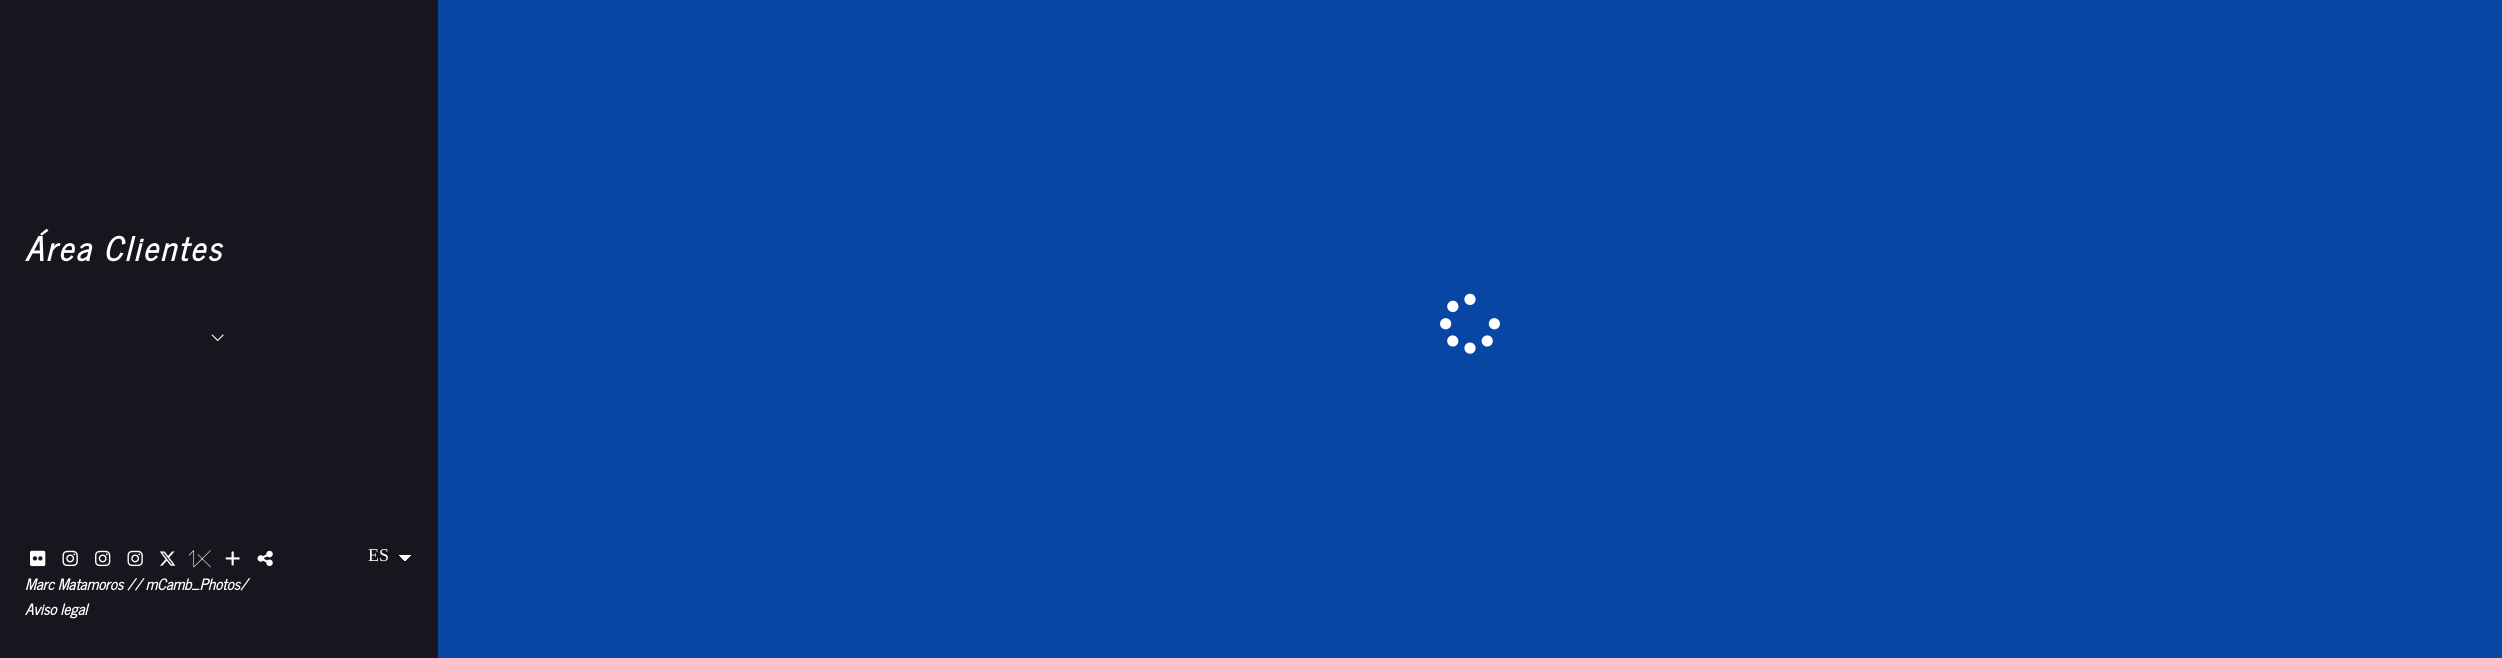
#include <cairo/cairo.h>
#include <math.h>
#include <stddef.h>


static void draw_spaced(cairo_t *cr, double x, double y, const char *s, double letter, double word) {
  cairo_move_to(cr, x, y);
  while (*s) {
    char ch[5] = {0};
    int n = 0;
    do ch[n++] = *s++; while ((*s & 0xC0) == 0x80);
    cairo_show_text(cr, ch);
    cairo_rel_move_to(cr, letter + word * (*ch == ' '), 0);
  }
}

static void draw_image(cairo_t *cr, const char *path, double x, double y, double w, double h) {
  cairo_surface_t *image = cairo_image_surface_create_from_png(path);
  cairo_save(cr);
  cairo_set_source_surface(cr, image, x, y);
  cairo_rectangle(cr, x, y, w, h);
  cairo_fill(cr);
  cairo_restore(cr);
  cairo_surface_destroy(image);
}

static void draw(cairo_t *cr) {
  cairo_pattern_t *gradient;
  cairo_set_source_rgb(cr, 8 / 255.0, 70 / 255.0, 163 / 255.0);
  cairo_paint(cr);
  cairo_set_source_rgb(cr, 23 / 255.0, 22 / 255.0, 31 / 255.0);
  cairo_rectangle(cr, 0, 0, 438, 658);
  cairo_fill(cr);
  draw_image(cr, "images/1.png", 211, 334, 13, 7);
  draw_image(cr, "images/2.png", 1440, 293, 60, 61);
  draw_image(cr, "images/3.png", 30, 550, 16, 17);
  draw_image(cr, "images/4.png", 62, 550, 16, 17);
  draw_image(cr, "images/5.png", 95, 550, 16, 17);
  draw_image(cr, "images/4.png", 127, 550, 16, 17);
  draw_image(cr, "images/6.png", 159, 551, 17, 15);
  draw_image(cr, "images/7.png", 188, 550, 23, 18);
  draw_image(cr, "images/8.png", 225, 551, 15, 15);
  draw_image(cr, "images/9.png", 257, 550, 16, 17);
  gradient = cairo_pattern_create_linear(405, 555, 411, 562);
  cairo_pattern_add_color_stop_rgba(gradient, 0.5, 1, 1, 1, 1);
  cairo_pattern_add_color_stop_rgba(gradient, 0.5, 23 / 255.0, 22 / 255.0, 31 / 255.0, 1);
  cairo_set_source(cr, gradient);
  cairo_pattern_destroy(gradient);
  cairo_rectangle(cr, 405, 555, 6, 6);
  cairo_fill(cr);
  gradient = cairo_pattern_create_linear(399, 562, 405, 555);
  cairo_pattern_add_color_stop_rgba(gradient, 0.5, 23 / 255.0, 22 / 255.0, 31 / 255.0, 1);
  cairo_pattern_add_color_stop_rgba(gradient, 0.5, 1, 1, 1, 1);
  cairo_set_source(cr, gradient);
  cairo_pattern_destroy(gradient);
  cairo_rectangle(cr, 399, 555, 6, 6);
  cairo_fill(cr);
  cairo_select_font_face(cr, "News Cycle", CAIRO_FONT_SLANT_ITALIC, CAIRO_FONT_WEIGHT_BOLD);
  cairo_set_font_size(cr, 32.5);
  cairo_set_source_rgb(cr, 1, 1, 1);
  draw_spaced(cr, 25, 261, "Área Clientes", 2.5, 0);
  cairo_select_font_face(cr, "Liberation Serif", CAIRO_FONT_SLANT_NORMAL, CAIRO_FONT_WEIGHT_NORMAL);
  cairo_set_font_size(cr, 18);
  cairo_move_to(cr, 368, 561);
  cairo_show_text(cr, "ES");
  cairo_select_font_face(cr, "News Cycle", CAIRO_FONT_SLANT_ITALIC, CAIRO_FONT_WEIGHT_BOLD);
  cairo_set_font_size(cr, 15);
  cairo_move_to(cr, 25, 590);
  cairo_show_text(cr, "Marc Matamoros // mCamb_Photos/");
  cairo_move_to(cr, 25, 615);
  cairo_show_text(cr, "Aviso legal");
}

int main(void) {
  cairo_surface_t *surface = cairo_image_surface_create(CAIRO_FORMAT_RGB24, 2502, 658);
  cairo_t *cr = cairo_create(surface);
  cairo_font_options_t *options = cairo_font_options_create();
  cairo_font_options_set_hint_metrics(options, CAIRO_HINT_METRICS_OFF);
  cairo_font_options_set_hint_style(options, CAIRO_HINT_STYLE_NONE);
  cairo_set_font_options(cr, options);
  cairo_set_miter_limit(cr, 4);
  draw(cr);
  cairo_surface_write_to_png(surface, "out.png");
  cairo_font_options_destroy(options);
  cairo_destroy(cr);
  cairo_surface_destroy(surface);
  return 0;
}
